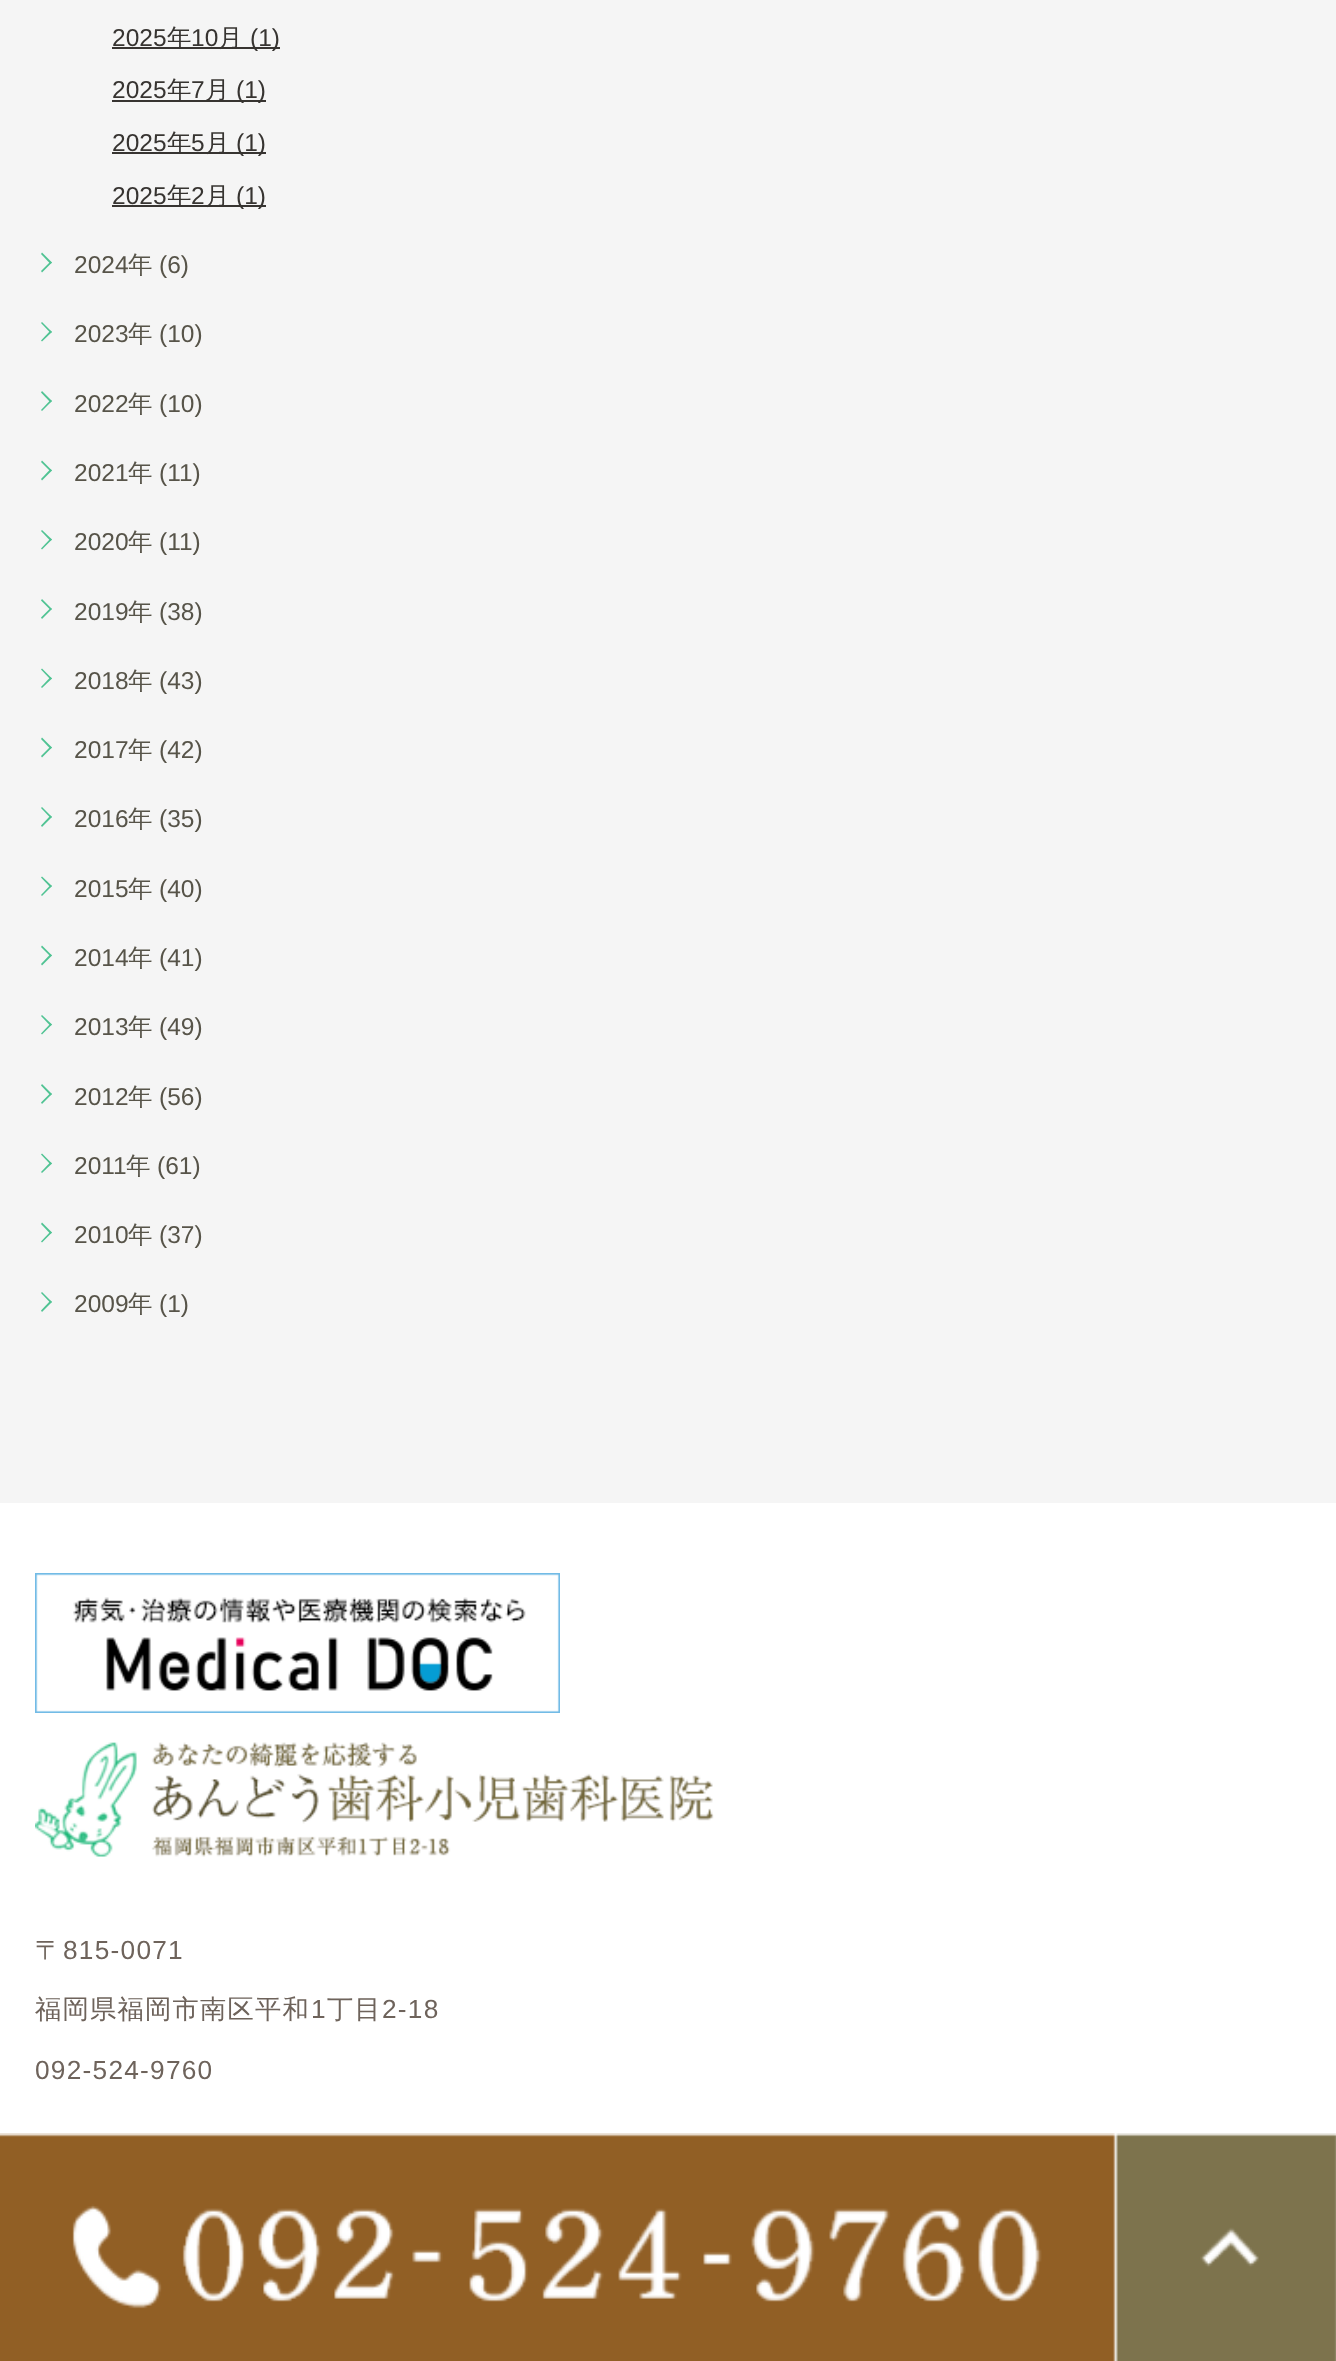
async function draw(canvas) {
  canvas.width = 1336
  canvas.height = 2361
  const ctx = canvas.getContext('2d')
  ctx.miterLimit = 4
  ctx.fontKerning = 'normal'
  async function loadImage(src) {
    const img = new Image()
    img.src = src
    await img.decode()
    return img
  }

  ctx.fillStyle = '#f5f5f5'
  ctx.fillRect(0, 0, 1336, 2361)
  ctx.font = '24.5px Liberation Sans'
  ctx.fillStyle = '#373431'
  ctx.fillText('2025', 112, 46)
  ctx.fillRect(112, 47, 168, 2)
  ctx.font = '500 24.5px WenQuanYi Zen Hei'
  ctx.fillText('年', 167, 46)
  ctx.font = '24.5px Liberation Sans'
  ctx.fillText('10', 191, 46)
  ctx.font = '500 24.5px WenQuanYi Zen Hei'
  ctx.fillText('月', 218, 46)
  ctx.font = '24.5px Liberation Sans'
  ctx.fillText('(1)', 250, 46)
  ctx.fillText('2025', 112, 98)
  ctx.fillRect(112, 100, 154, 2)
  ctx.font = '500 24.5px WenQuanYi Zen Hei'
  ctx.fillText('年', 167, 98)
  ctx.font = '24.5px Liberation Sans'
  ctx.fillText('7', 191, 98)
  ctx.font = '500 24.5px WenQuanYi Zen Hei'
  ctx.fillText('月', 205, 98)
  ctx.font = '24.5px Liberation Sans'
  ctx.fillText('(1)', 236, 98)
  ctx.fillText('2025', 112, 151)
  ctx.fillRect(112, 152, 154, 2)
  ctx.font = '500 24.5px WenQuanYi Zen Hei'
  ctx.fillText('年', 167, 151)
  ctx.font = '24.5px Liberation Sans'
  ctx.fillText('5', 191, 151)
  ctx.font = '500 24.5px WenQuanYi Zen Hei'
  ctx.fillText('月', 205, 151)
  ctx.font = '24.5px Liberation Sans'
  ctx.fillText('(1)', 236, 151)
  ctx.fillText('2025', 112, 204)
  ctx.fillRect(112, 205, 154, 2)
  ctx.font = '500 24.5px WenQuanYi Zen Hei'
  ctx.fillText('年', 167, 204)
  ctx.font = '24.5px Liberation Sans'
  ctx.fillText('2', 191, 204)
  ctx.font = '500 24.5px WenQuanYi Zen Hei'
  ctx.fillText('月', 205, 204)
  ctx.font = '24.5px Liberation Sans'
  ctx.fillText('(1)', 236, 204)
  ctx.fillStyle = '#50c393'
  ctx.beginPath()
  ctx.moveTo(41, 254)
  ctx.lineTo(42, 252.5)
  ctx.lineTo(52, 262.5)
  ctx.lineTo(50.5, 264)
  ctx.closePath()
  ctx.fill()
  ctx.beginPath()
  ctx.moveTo(41, 271)
  ctx.lineTo(50.5, 261.5)
  ctx.lineTo(52, 262.5)
  ctx.lineTo(42, 272.5)
  ctx.closePath()
  ctx.fill()
  ctx.fillStyle = '#575449'
  ctx.fillText('2024', 74, 273)
  ctx.font = '500 24.5px WenQuanYi Zen Hei'
  ctx.fillText('年', 128, 273)
  ctx.font = '24.5px Liberation Sans'
  ctx.fillText('(6)', 159, 273)
  ctx.fillStyle = '#50c393'
  ctx.beginPath()
  ctx.moveTo(41, 323)
  ctx.lineTo(42, 322)
  ctx.lineTo(52, 332)
  ctx.lineTo(50.5, 333)
  ctx.closePath()
  ctx.fill()
  ctx.beginPath()
  ctx.moveTo(41, 340.5)
  ctx.lineTo(50.5, 330.5)
  ctx.lineTo(52, 332)
  ctx.lineTo(42, 341.5)
  ctx.closePath()
  ctx.fill()
  ctx.fillStyle = '#575449'
  ctx.fillText('2023', 74, 342)
  ctx.font = '500 24.5px WenQuanYi Zen Hei'
  ctx.fillText('年', 128, 342)
  ctx.font = '24.5px Liberation Sans'
  ctx.fillText('(10)', 159, 342)
  ctx.fillStyle = '#50c393'
  ctx.beginPath()
  ctx.moveTo(41, 392.5)
  ctx.lineTo(42, 391)
  ctx.lineTo(52, 401)
  ctx.lineTo(50.5, 402.5)
  ctx.closePath()
  ctx.fill()
  ctx.beginPath()
  ctx.moveTo(41, 410)
  ctx.lineTo(50.5, 400)
  ctx.lineTo(52, 401)
  ctx.lineTo(42, 411)
  ctx.closePath()
  ctx.fill()
  ctx.fillStyle = '#575449'
  ctx.fillText('2022', 74, 412)
  ctx.font = '500 24.5px WenQuanYi Zen Hei'
  ctx.fillText('年', 128, 412)
  ctx.font = '24.5px Liberation Sans'
  ctx.fillText('(10)', 159, 412)
  ctx.fillStyle = '#50c393'
  ctx.beginPath()
  ctx.moveTo(41, 462)
  ctx.lineTo(42, 460.5)
  ctx.lineTo(52, 470.5)
  ctx.lineTo(50.5, 471.5)
  ctx.closePath()
  ctx.fill()
  ctx.beginPath()
  ctx.moveTo(41, 479)
  ctx.lineTo(50.5, 469)
  ctx.lineTo(52, 470.5)
  ctx.lineTo(42, 480.5)
  ctx.closePath()
  ctx.fill()
  ctx.fillStyle = '#575449'
  ctx.fillText('2021', 74, 481)
  ctx.font = '500 24.5px WenQuanYi Zen Hei'
  ctx.fillText('年', 128, 481)
  ctx.font = '24.5px Liberation Sans'
  ctx.fillText('(11)', 159, 481)
  ctx.fillStyle = '#50c393'
  ctx.beginPath()
  ctx.moveTo(41, 531)
  ctx.lineTo(42, 530)
  ctx.lineTo(52, 539.5)
  ctx.lineTo(50.5, 541)
  ctx.closePath()
  ctx.fill()
  ctx.beginPath()
  ctx.moveTo(41, 548.5)
  ctx.lineTo(50.5, 538.5)
  ctx.lineTo(52, 539.5)
  ctx.lineTo(42, 549.5)
  ctx.closePath()
  ctx.fill()
  ctx.fillStyle = '#575449'
  ctx.fillText('2020', 74, 550)
  ctx.font = '500 24.5px WenQuanYi Zen Hei'
  ctx.fillText('年', 128, 550)
  ctx.font = '24.5px Liberation Sans'
  ctx.fillText('(11)', 159, 550)
  ctx.fillStyle = '#50c393'
  ctx.beginPath()
  ctx.moveTo(41, 600.5)
  ctx.lineTo(42, 599)
  ctx.lineTo(52, 609)
  ctx.lineTo(50.5, 610)
  ctx.closePath()
  ctx.fill()
  ctx.beginPath()
  ctx.moveTo(41, 617.5)
  ctx.lineTo(50.5, 608)
  ctx.lineTo(52, 609)
  ctx.lineTo(42, 619)
  ctx.closePath()
  ctx.fill()
  ctx.fillStyle = '#575449'
  ctx.fillText('2019', 74, 620)
  ctx.font = '500 24.5px WenQuanYi Zen Hei'
  ctx.fillText('年', 128, 620)
  ctx.font = '24.5px Liberation Sans'
  ctx.fillText('(38)', 159, 620)
  ctx.fillStyle = '#50c393'
  ctx.beginPath()
  ctx.moveTo(41, 669.5)
  ctx.lineTo(42, 668.5)
  ctx.lineTo(52, 678.5)
  ctx.lineTo(50.5, 679.5)
  ctx.closePath()
  ctx.fill()
  ctx.beginPath()
  ctx.moveTo(41, 687)
  ctx.lineTo(50.5, 677)
  ctx.lineTo(52, 678.5)
  ctx.lineTo(42, 688)
  ctx.closePath()
  ctx.fill()
  ctx.fillStyle = '#575449'
  ctx.fillText('2018', 74, 689)
  ctx.font = '500 24.5px WenQuanYi Zen Hei'
  ctx.fillText('年', 128, 689)
  ctx.font = '24.5px Liberation Sans'
  ctx.fillText('(43)', 159, 689)
  ctx.fillStyle = '#50c393'
  ctx.beginPath()
  ctx.moveTo(41, 739)
  ctx.lineTo(42, 737.5)
  ctx.lineTo(52, 747.5)
  ctx.lineTo(50.5, 749)
  ctx.closePath()
  ctx.fill()
  ctx.beginPath()
  ctx.moveTo(41, 756)
  ctx.lineTo(50.5, 746.5)
  ctx.lineTo(52, 747.5)
  ctx.lineTo(42, 757.5)
  ctx.closePath()
  ctx.fill()
  ctx.fillStyle = '#575449'
  ctx.fillText('2017', 74, 758)
  ctx.font = '500 24.5px WenQuanYi Zen Hei'
  ctx.fillText('年', 128, 758)
  ctx.font = '24.5px Liberation Sans'
  ctx.fillText('(42)', 159, 758)
  ctx.fillStyle = '#50c393'
  ctx.beginPath()
  ctx.moveTo(41, 808)
  ctx.lineTo(42, 807)
  ctx.lineTo(52, 817)
  ctx.lineTo(50.5, 818)
  ctx.closePath()
  ctx.fill()
  ctx.beginPath()
  ctx.moveTo(41, 825.5)
  ctx.lineTo(50.5, 815.5)
  ctx.lineTo(52, 817)
  ctx.lineTo(42, 827)
  ctx.closePath()
  ctx.fill()
  ctx.fillStyle = '#575449'
  ctx.fillText('2016', 74, 827)
  ctx.font = '500 24.5px WenQuanYi Zen Hei'
  ctx.fillText('年', 128, 827)
  ctx.font = '24.5px Liberation Sans'
  ctx.fillText('(35)', 159, 827)
  ctx.fillStyle = '#50c393'
  ctx.beginPath()
  ctx.moveTo(41, 877.5)
  ctx.lineTo(42, 876.5)
  ctx.lineTo(52, 886)
  ctx.lineTo(50.5, 887.5)
  ctx.closePath()
  ctx.fill()
  ctx.beginPath()
  ctx.moveTo(41, 895)
  ctx.lineTo(50.5, 885)
  ctx.lineTo(52, 886)
  ctx.lineTo(42, 896)
  ctx.closePath()
  ctx.fill()
  ctx.fillStyle = '#575449'
  ctx.fillText('2015', 74, 897)
  ctx.font = '500 24.5px WenQuanYi Zen Hei'
  ctx.fillText('年', 128, 897)
  ctx.font = '24.5px Liberation Sans'
  ctx.fillText('(40)', 159, 897)
  ctx.fillStyle = '#50c393'
  ctx.beginPath()
  ctx.moveTo(41, 947)
  ctx.lineTo(42, 945.5)
  ctx.lineTo(52, 955.5)
  ctx.lineTo(50.5, 956.5)
  ctx.closePath()
  ctx.fill()
  ctx.beginPath()
  ctx.moveTo(41, 964)
  ctx.lineTo(50.5, 954)
  ctx.lineTo(52, 955.5)
  ctx.lineTo(42, 965.5)
  ctx.closePath()
  ctx.fill()
  ctx.fillStyle = '#575449'
  ctx.fillText('2014', 74, 966)
  ctx.font = '500 24.5px WenQuanYi Zen Hei'
  ctx.fillText('年', 128, 966)
  ctx.font = '24.5px Liberation Sans'
  ctx.fillText('(41)', 159, 966)
  ctx.fillStyle = '#50c393'
  ctx.beginPath()
  ctx.moveTo(41, 1016)
  ctx.lineTo(42, 1015)
  ctx.lineTo(52, 1024.5)
  ctx.lineTo(50.5, 1026)
  ctx.closePath()
  ctx.fill()
  ctx.beginPath()
  ctx.moveTo(41, 1033.5)
  ctx.lineTo(50.5, 1023.5)
  ctx.lineTo(52, 1024.5)
  ctx.lineTo(42, 1034.5)
  ctx.closePath()
  ctx.fill()
  ctx.fillStyle = '#575449'
  ctx.fillText('2013', 74, 1035)
  ctx.font = '500 24.5px WenQuanYi Zen Hei'
  ctx.fillText('年', 128, 1035)
  ctx.font = '24.5px Liberation Sans'
  ctx.fillText('(49)', 159, 1035)
  ctx.fillStyle = '#50c393'
  ctx.beginPath()
  ctx.moveTo(41, 1085.5)
  ctx.lineTo(42, 1084)
  ctx.lineTo(52, 1094)
  ctx.lineTo(50.5, 1095.5)
  ctx.closePath()
  ctx.fill()
  ctx.beginPath()
  ctx.moveTo(41, 1102.5)
  ctx.lineTo(50.5, 1093)
  ctx.lineTo(52, 1094)
  ctx.lineTo(42, 1104)
  ctx.closePath()
  ctx.fill()
  ctx.fillStyle = '#575449'
  ctx.fillText('2012', 74, 1105)
  ctx.font = '500 24.5px WenQuanYi Zen Hei'
  ctx.fillText('年', 128, 1105)
  ctx.font = '24.5px Liberation Sans'
  ctx.fillText('(56)', 159, 1105)
  ctx.fillStyle = '#50c393'
  ctx.beginPath()
  ctx.moveTo(41, 1154.5)
  ctx.lineTo(42, 1153.5)
  ctx.lineTo(52, 1163.5)
  ctx.lineTo(50.5, 1164.5)
  ctx.closePath()
  ctx.fill()
  ctx.beginPath()
  ctx.moveTo(41, 1172)
  ctx.lineTo(50.5, 1162)
  ctx.lineTo(52, 1163.5)
  ctx.lineTo(42, 1173)
  ctx.closePath()
  ctx.fill()
  ctx.fillStyle = '#575449'
  ctx.fillText('2011', 74, 1174)
  ctx.font = '500 24.5px WenQuanYi Zen Hei'
  ctx.fillText('年', 126, 1174)
  ctx.font = '24.5px Liberation Sans'
  ctx.fillText('(61)', 157, 1174)
  ctx.fillStyle = '#50c393'
  ctx.beginPath()
  ctx.moveTo(41, 1224)
  ctx.lineTo(42, 1222.5)
  ctx.lineTo(52, 1232.5)
  ctx.lineTo(50.5, 1234)
  ctx.closePath()
  ctx.fill()
  ctx.beginPath()
  ctx.moveTo(41, 1241.5)
  ctx.lineTo(50.5, 1231.5)
  ctx.lineTo(52, 1232.5)
  ctx.lineTo(42, 1242.5)
  ctx.closePath()
  ctx.fill()
  ctx.fillStyle = '#575449'
  ctx.fillText('2010', 74, 1243)
  ctx.font = '500 24.5px WenQuanYi Zen Hei'
  ctx.fillText('年', 128, 1243)
  ctx.font = '24.5px Liberation Sans'
  ctx.fillText('(37)', 159, 1243)
  ctx.fillStyle = '#50c393'
  ctx.beginPath()
  ctx.moveTo(41, 1293)
  ctx.lineTo(42, 1292)
  ctx.lineTo(52, 1302)
  ctx.lineTo(50.5, 1303)
  ctx.closePath()
  ctx.fill()
  ctx.beginPath()
  ctx.moveTo(41, 1310.5)
  ctx.lineTo(50.5, 1300.5)
  ctx.lineTo(52, 1302)
  ctx.lineTo(42, 1312)
  ctx.closePath()
  ctx.fill()
  ctx.fillStyle = '#575449'
  ctx.fillText('2009', 74, 1312)
  ctx.font = '500 24.5px WenQuanYi Zen Hei'
  ctx.fillText('年', 128, 1312)
  ctx.font = '24.5px Liberation Sans'
  ctx.fillText('(1)', 159, 1312)
  ctx.fillStyle = '#fff'
  ctx.fillRect(0, 1503, 1336, 858)
  ctx.drawImage(await loadImage('image0.png'), 35, 1573, 525, 140)
  ctx.drawImage(await loadImage('image1.png'), 35, 1742, 679, 115)
  ctx.letterSpacing = '1.25px'
  ctx.font = '500 26.25px WenQuanYi Zen Hei'
  ctx.fillStyle = '#6e635b'
  ctx.fillText('〒', 35, 1959)
  ctx.font = '26.25px Liberation Sans'
  ctx.fillText('815-0071', 63, 1959)
  ctx.font = '500 26.25px WenQuanYi Zen Hei'
  ctx.fillText('福岡県福岡市南区平和', 35, 2018)
  ctx.font = '26.25px Liberation Sans'
  ctx.fillText('1', 311, 2018)
  ctx.font = '500 26.25px WenQuanYi Zen Hei'
  ctx.fillText('丁目', 327, 2018)
  ctx.font = '26.25px Liberation Sans'
  ctx.fillText('2-18', 382, 2018)
  ctx.fillText('092-524-9760', 35, 2079)
  ctx.drawImage(await loadImage('image2.png'), 0, 2133, 1115, 228)
  ctx.drawImage(await loadImage('image3.png'), 1115, 2133, 221, 228)
}

draw(document.querySelector('canvas'))
